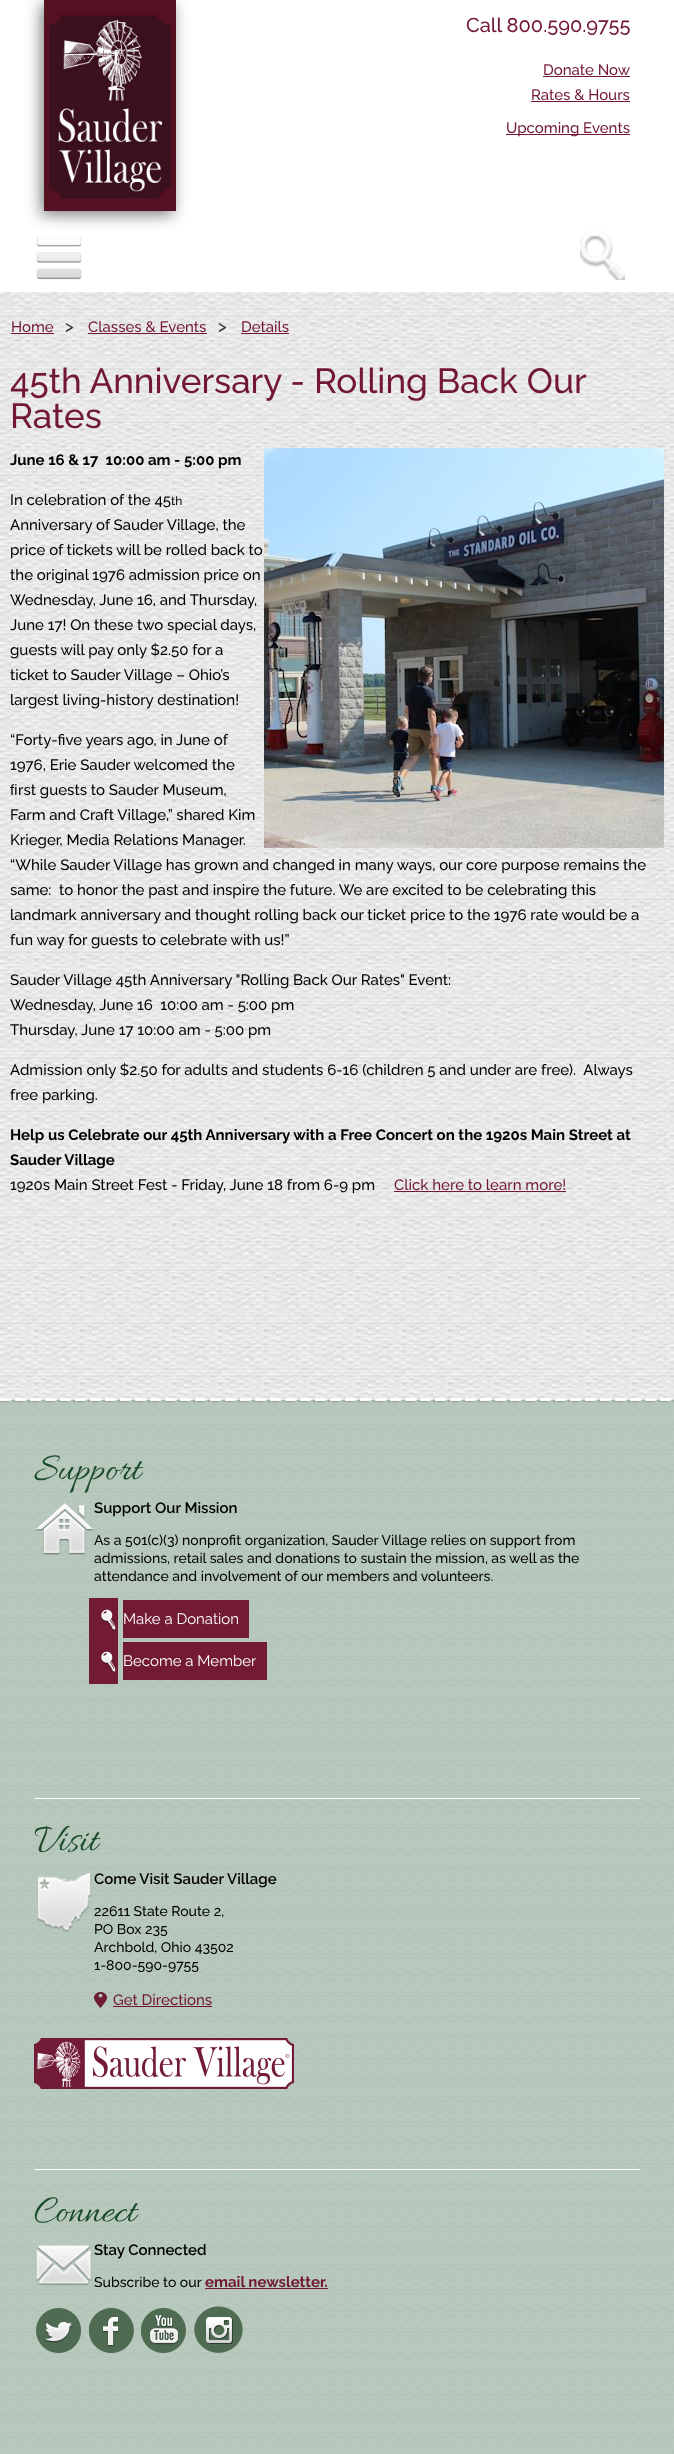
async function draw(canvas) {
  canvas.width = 674
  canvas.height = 2454
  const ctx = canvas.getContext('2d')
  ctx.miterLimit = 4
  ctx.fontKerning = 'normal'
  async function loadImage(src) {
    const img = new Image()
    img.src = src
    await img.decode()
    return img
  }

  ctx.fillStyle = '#fff'
  ctx.fillRect(0, 0, 674, 2454)
  ctx.drawImage(await loadImage('image0.png'), 0, 292, 674, 1106)
  ctx.drawImage(await loadImage('image3.png'), 36, 236, 46, 44)
  ctx.fillStyle = '#00000080'
  ctx.filter = 'blur(7.5px)'
  ctx.beginPath()
  ctx.rect(41, 4, 132, 211)
  ctx.fill()
  ctx.filter = 'none'
  ctx.drawImage(await loadImage('image1.png'), 44, 0, 132, 211)
  ctx.font = '500 20px Raleway'
  ctx.fillStyle = '#721835'
  ctx.fillText('Call 800.590.9755', 466, 32)
  ctx.font = '500 15px Raleway'
  ctx.fillText('Donate Now', 543, 75)
  ctx.fillRect(543, 76, 87, 1)
  ctx.fillText('Rates & Hours', 531, 100)
  ctx.fillRect(531, 101, 99, 1)
  ctx.fillRect(506, 134, 124, 1)
  ctx.fillText('Upcoming Events', 506, 133)
  ctx.drawImage(await loadImage('image2.png'), 580, 231, 45, 49)
  ctx.fillText('Home', 11, 332)
  ctx.fillRect(11, 333, 43, 1)
  ctx.font = '500 17px Raleway'
  ctx.fillStyle = '#333'
  ctx.fillText('>', 65, 332)
  ctx.font = '500 15px Raleway'
  ctx.fillStyle = '#721835'
  ctx.fillText('Classes & Events', 88, 332)
  ctx.fillRect(88, 333, 119, 1)
  ctx.font = '500 17px Raleway'
  ctx.fillStyle = '#333'
  ctx.fillText('>', 218, 332)
  ctx.font = '500 15px Raleway'
  ctx.fillStyle = '#721835'
  ctx.fillText('Details', 241, 332)
  ctx.fillRect(241, 333, 48, 1)
  ctx.font = '500 35px Raleway'
  ctx.fillText('45th Anniversary - Rolling Back Our', 10, 393)
  ctx.fillText('Rates', 10, 428)
  ctx.font = 'bold 15px Raleway'
  ctx.fillStyle = '#000'
  ctx.fillText('June 16 & 17  10:00 am - 5:00 pm', 10, 465)
  ctx.drawImage(await loadImage('image4.png'), 264, 448, 400, 400)
  ctx.font = '500 15px Raleway'
  ctx.fillText('In celebration of the 45', 10, 505)
  ctx.font = '500 12px Raleway'
  ctx.fillText('th', 171, 505)
  ctx.font = '500 15px Raleway'
  ctx.fillText('Anniversary of Sauder Village, the', 10, 530)
  ctx.fillText('price of tickets will be rolled back to', 10, 555)
  ctx.fillText('the original 1976 admission price on', 10, 580)
  ctx.fillText('Wednesday, June 16, and Thursday,', 10, 605)
  ctx.fillText('June 17! On these two special days,', 10, 630)
  ctx.fillText('guests will pay only $2.50 for a', 10, 655)
  ctx.fillText('ticket to Sauder Village – Ohio’s', 10, 680)
  ctx.fillText('largest living-history destination!', 10, 705)
  ctx.fillText('“Forty-five years ago, in June of', 10, 745)
  ctx.fillText('1976, Erie Sauder welcomed the', 10, 770)
  ctx.font = '15px Liberation Sans'
  ctx.fillText('ﬁ', 10, 795)
  ctx.font = '500 15px Raleway'
  ctx.fillText('rst guests to Sauder Museum,', 18, 795)
  ctx.fillText('Farm and Craft Village,” shared Kim', 10, 820)
  ctx.fillText('Krieger, Media Relations Manager.', 10, 845)
  ctx.fillText('“While Sauder Village has grown and changed in many ways, our core purpose remains the', 10, 870)
  ctx.fillText('same:  to honor the past and inspire the future. We are excited to be celebrating this', 10, 895)
  ctx.fillText('landmark anniversary and thought rolling back our ticket price to the 1976 rate would be a', 10, 920)
  ctx.fillText('fun way for guests to celebrate with us!”', 10, 945)
  ctx.fillText('Sauder Village 45th Anniversary "Rolling Back Our Rates" Event:', 10, 985)
  ctx.fillText('Wednesday, June 16  10:00 am - 5:00 pm', 10, 1010)
  ctx.fillText('Thursday, June 17 10:00 am - 5:00 pm', 10, 1035)
  ctx.fillText('Admission only $2.50 for adults and students 6-16 (children 5 and under are free).  Always', 10, 1075)
  ctx.fillText('free parking.', 10, 1100)
  ctx.font = 'bold 15px Raleway'
  ctx.fillText('Help us Celebrate our 45th Anniversary with a Free Concert on the 1920s Main Street at', 10, 1140)
  ctx.fillText('Sauder Village', 10, 1165)
  ctx.font = '500 15px Raleway'
  ctx.fillText('1920s Main Street Fest - Friday, June 18 from 6-9 pm', 10, 1190)
  ctx.fillStyle = '#721835'
  ctx.fillText('Click here to learn more!', 394, 1190)
  ctx.fillRect(394, 1191, 172, 1)
  ctx.drawImage(await loadImage('image5.png'), 0, 1398, 674, 1056)
  ctx.fillStyle = '#fff'
  ctx.fillRect(34, 1798, 606, 1)
  ctx.font = '40px Allura'
  ctx.fillStyle = '#1b4a2b'
  ctx.fillText('Support', 34, 1479)
  ctx.drawImage(await loadImage('image6.png'), 35, 1503, 59, 52)
  ctx.font = '600 15px Raleway'
  ctx.fillStyle = '#000'
  ctx.fillText('Support Our Mission', 94, 1513)
  ctx.font = '500 14px Raleway'
  ctx.fillText('As a 501(c)(3) nonprofit organization, Sauder Village relies on support from', 94, 1545)
  ctx.fillText('admissions, retail sales and donations to sustain the mission, as well as the', 94, 1563)
  ctx.fillText('attendance and involvement of our members and volunteers.', 94, 1581)
  ctx.fillStyle = '#731b35'
  ctx.fillRect(89, 1598, 29, 86)
  ctx.drawImage(await loadImage('image7.png'), 100, 1609, 16, 23)
  ctx.fillRect(123, 1600, 126, 38)
  ctx.font = '15px Raleway'
  ctx.fillStyle = '#fff'
  ctx.fillText('Make a Donation', 123, 1624)
  ctx.drawImage(await loadImage('image7.png'), 100, 1651, 16, 23)
  ctx.fillStyle = '#731b35'
  ctx.fillRect(123, 1642, 144, 38)
  ctx.fillStyle = '#fff'
  ctx.fillText('Become a Member', 123, 1666)
  ctx.fillRect(34, 2169, 606, 1)
  ctx.font = '40px Allura'
  ctx.fillStyle = '#1b4a2b'
  ctx.fillText('Visit', 34, 1850)
  ctx.drawImage(await loadImage('image8.png'), 37, 1873, 55, 59)
  ctx.font = '600 15px Raleway'
  ctx.fillStyle = '#000'
  ctx.fillText('Come Visit Sauder Village', 94, 1884)
  ctx.font = '500 14px Raleway'
  ctx.fillText('22611 State Route 2,', 94, 1916)
  ctx.fillText('PO Box 235', 94, 1934)
  ctx.fillText('Archbold, Ohio 43502', 94, 1952)
  ctx.fillText('1-800-590-9755', 94, 1970)
  ctx.drawImage(await loadImage('image9.png'), 94, 1992, 13, 16)
  ctx.font = '500 15px Raleway'
  ctx.fillStyle = '#721835'
  ctx.fillText('Get Directions', 113, 2005)
  ctx.fillRect(113, 2006, 99, 1)
  ctx.drawImage(await loadImage('image10.png'), 34, 2038, 260, 51)
  ctx.font = '40px Allura'
  ctx.fillStyle = '#1b4a2b'
  ctx.fillText('Connect', 34, 2221)
  ctx.drawImage(await loadImage('image11.png'), 35, 2245, 57, 41)
  ctx.font = '600 15px Raleway'
  ctx.fillStyle = '#000'
  ctx.fillText('Stay Connected', 94, 2255)
  ctx.font = '500 14px Raleway'
  ctx.fillText('Subscribe to our', 94, 2287)
  ctx.font = 'bold 15px Raleway'
  ctx.fillStyle = '#721835'
  ctx.fillText('email newsletter.', 205, 2287)
  ctx.fillRect(205, 2288, 123, 1)
  ctx.drawImage(await loadImage('image12.png'), 36, 2308, 45, 45)
  ctx.drawImage(await loadImage('image13.png'), 89, 2308, 45, 45)
  ctx.drawImage(await loadImage('image14.png'), 141, 2308, 45, 45)
  ctx.drawImage(await loadImage('image15.png'), 194, 2306, 49, 47)
}

draw(document.querySelector('canvas'))
